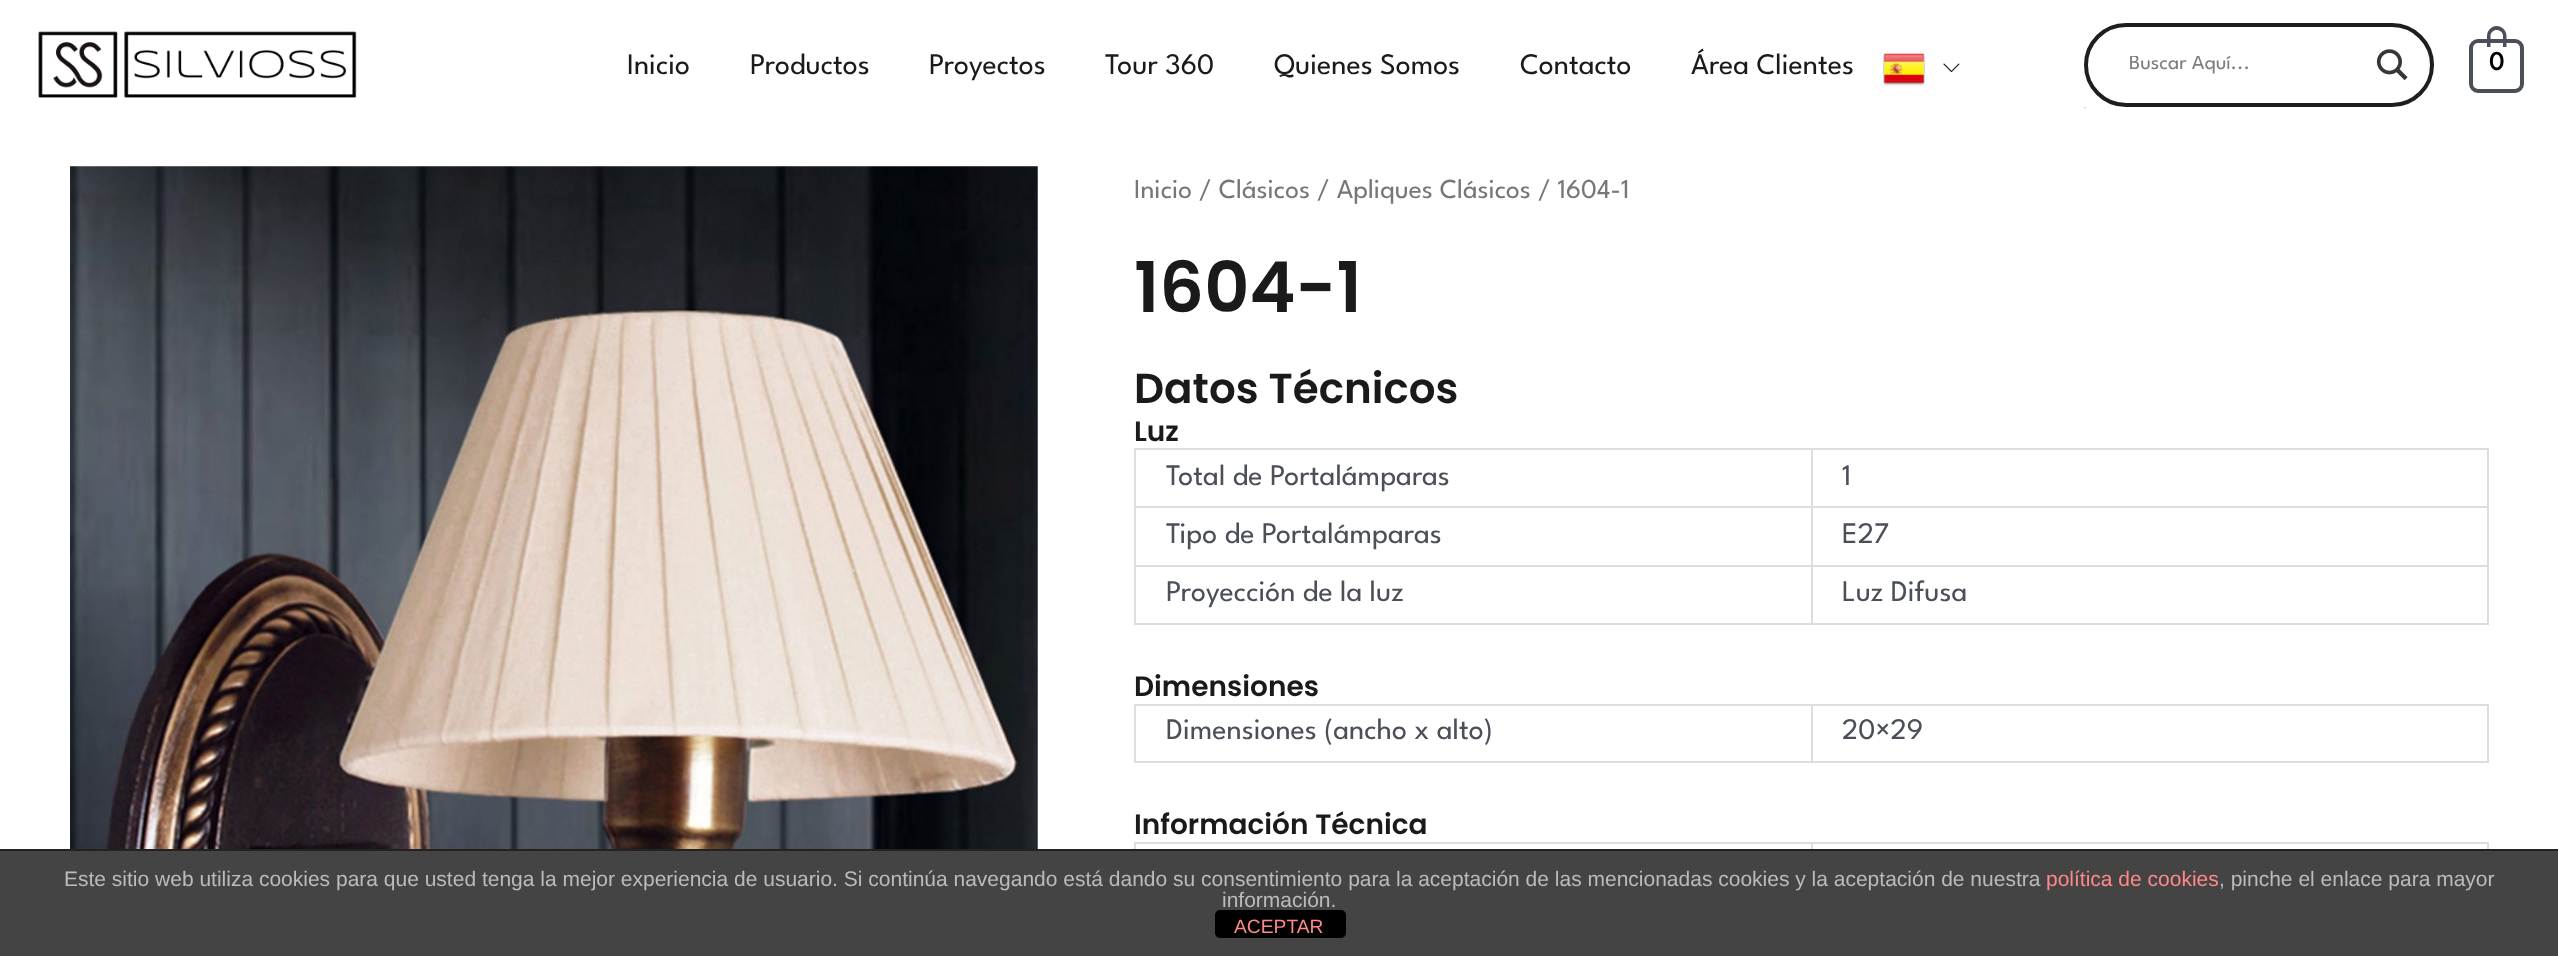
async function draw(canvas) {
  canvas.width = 2558
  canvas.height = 956
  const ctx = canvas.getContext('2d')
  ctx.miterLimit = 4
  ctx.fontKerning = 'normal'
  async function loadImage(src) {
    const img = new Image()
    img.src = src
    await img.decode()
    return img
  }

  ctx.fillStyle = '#fff'
  ctx.fillRect(0, 0, 2558, 956)
  ctx.drawImage(await loadImage('image0.png'), 38, 31, 319, 67)
  ctx.font = '100 29.75px League Spartan'
  ctx.fillStyle = '#1a1a1a'
  ctx.fillText('Inicio', 627, 74)
  ctx.fillText('Productos', 750, 74)
  ctx.fillText('Proyectos', 929, 74)
  ctx.fillText('Tour 360', 1105, 74)
  ctx.fillText('Quienes Somos', 1274, 74)
  ctx.fillText('Contacto', 1520, 74)
  ctx.fillText('Área Clientes', 1691, 74)
  ctx.drawImage(await loadImage('image1.png'), 1883, 52, 42, 34)
  ctx.drawImage(await loadImage('image2.png'), 1943, 63, 17, 10)
  ctx.beginPath()
  ctx.roundRect(2086, 25, 346, 80, 40)
  ctx.strokeStyle = '#1e1e1e'
  ctx.lineWidth = 4
  ctx.stroke()
  ctx.save()
  ctx.beginPath()
  ctx.rect(2128, 56, 231, 19)
  ctx.clip()
  ctx.font = '100 21px League Spartan'
  ctx.fillStyle = '#7d7d7d'
  ctx.fillText('Buscar Aquí...', 2129, 69)
  ctx.restore()
  ctx.drawImage(await loadImage('image3.png'), 2376, 49, 32, 32)
  ctx.drawImage(await loadImage('image4.png'), 2084, 107, 2, 2)
  ctx.beginPath()
  ctx.roundRect(2471, 41, 51, 50, 7)
  ctx.strokeStyle = '#4b4f58'
  ctx.stroke()
  ctx.fillStyle = '#4b4f58'
  ctx.beginPath()
  ctx.moveTo(2496.5, 26)
  ctx.bezierCurveTo(2502, 26, 2506.5, 30.5, 2506.5, 36)
  ctx.lineTo(2506.5, 47)
  ctx.lineTo(2487, 47)
  ctx.lineTo(2487, 36)
  ctx.bezierCurveTo(2487, 30.5, 2491.5, 26, 2496.5, 26)
  ctx.closePath()
  ctx.moveTo(2496.5, 30)
  ctx.bezierCurveTo(2500, 30, 2503, 32.5, 2503, 36)
  ctx.lineTo(2503, 47)
  ctx.lineTo(2490.5, 47)
  ctx.lineTo(2490.5, 36)
  ctx.bezierCurveTo(2490.5, 32.5, 2493.5, 30, 2496.5, 30)
  ctx.closePath()
  ctx.fill('evenodd')
  ctx.font = 'bold 26px League Spartan'
  ctx.fillStyle = '#000'
  ctx.fillText('0', 2489, 70)
  ctx.drawImage(await loadImage('image5.png'), 70, 166, 968, 683)
  ctx.font = '100 27.4px League Spartan'
  ctx.fillStyle = '#777'
  ctx.fillText('Inicio / Clásicos / Apliques Clásicos / 1604-1', 1134, 198)
  ctx.font = '600 70px Poppins'
  ctx.fillStyle = '#1a1a1a'
  ctx.fillText('1604-1', 1134, 312)
  ctx.font = '600 42px Poppins'
  ctx.fillText('Datos Técnicos', 1134, 403)
  ctx.font = '600 28px Poppins'
  ctx.fillText('Luz', 1134, 441)
  ctx.fillStyle = '#ddd'
  ctx.fillRect(1134, 448, 1355, 2)
  ctx.fillRect(1134, 448, 2, 177)
  ctx.fillRect(1811, 450, 2, 175)
  ctx.fillRect(1136, 506, 677, 2)
  ctx.font = '100 29.75px League Spartan'
  ctx.fillStyle = '#4b4f58'
  ctx.fillText('Total de Portalámparas', 1166, 485)
  ctx.fillStyle = '#ddd'
  ctx.fillRect(2487, 450, 2, 175)
  ctx.fillRect(1813, 506, 676, 2)
  ctx.fillStyle = '#4b4f58'
  ctx.fillText('1', 1842, 485)
  ctx.fillStyle = '#ddd'
  ctx.fillRect(1136, 565, 1353, 2)
  ctx.fillStyle = '#4b4f58'
  ctx.fillText('Tipo de Portalámparas', 1166, 543)
  ctx.fillText('E27', 1842, 543)
  ctx.fillStyle = '#ddd'
  ctx.fillRect(1136, 623, 1353, 2)
  ctx.fillStyle = '#4b4f58'
  ctx.fillText('Proyección de la luz', 1166, 601)
  ctx.fillText('Luz Difusa', 1842, 601)
  ctx.font = '600 28px Poppins'
  ctx.fillStyle = '#1a1a1a'
  ctx.fillText('Dimensiones', 1134, 696)
  ctx.fillStyle = '#ddd'
  ctx.fillRect(1134, 704, 1355, 2)
  ctx.fillRect(1134, 704, 2, 59)
  ctx.fillRect(1811, 705, 2, 58)
  ctx.fillRect(1136, 761, 677, 2)
  ctx.font = '100 29.75px League Spartan'
  ctx.fillStyle = '#4b4f58'
  ctx.fillText('Dimensiones (ancho x alto)', 1166, 739)
  ctx.fillStyle = '#ddd'
  ctx.fillRect(2487, 705, 2, 58)
  ctx.fillRect(1813, 761, 676, 2)
  ctx.fillStyle = '#4b4f58'
  ctx.fillText('20×29', 1842, 739)
  ctx.font = '600 28px Poppins'
  ctx.fillStyle = '#1a1a1a'
  ctx.fillText('Información Técnica', 1134, 834)
  ctx.fillStyle = '#ddd'
  ctx.fillRect(1134, 842, 1355, 2)
  ctx.fillRect(1134, 842, 2, 7)
  ctx.fillRect(1811, 844, 2, 5)
  ctx.fillRect(2487, 844, 2, 5)
  ctx.fillStyle = '#444'
  ctx.fillRect(0, 851, 2558, 105)
  ctx.fillStyle = '#222'
  ctx.fillRect(0, 849, 2558, 2)
  ctx.font = '21px Liberation Sans'
  ctx.fillStyle = '#bbb'
  ctx.fillText('Este sitio web utiliza cookies para que usted tenga la mejor experiencia de usuario. Si continúa navegando está dando su consentimiento para la aceptación de las mencionadas cookies y la aceptación de nuestra', 64, 886)
  ctx.fillStyle = '#f88'
  ctx.fillText('política de cookies', 2046, 886)
  ctx.fillStyle = '#bbb'
  ctx.fillText(', pinche el enlace para mayor', 2219, 886)
  ctx.fillText('información.', 1222, 907)
  ctx.fillStyle = '#000'
  ctx.beginPath()
  ctx.roundRect(1215, 910, 131, 28, 5)
  ctx.fill()
  ctx.font = '19.25px Liberation Sans'
  ctx.fillStyle = '#f88'
  ctx.fillText('ACEPTAR', 1234, 933)
}

draw(document.querySelector('canvas'))
